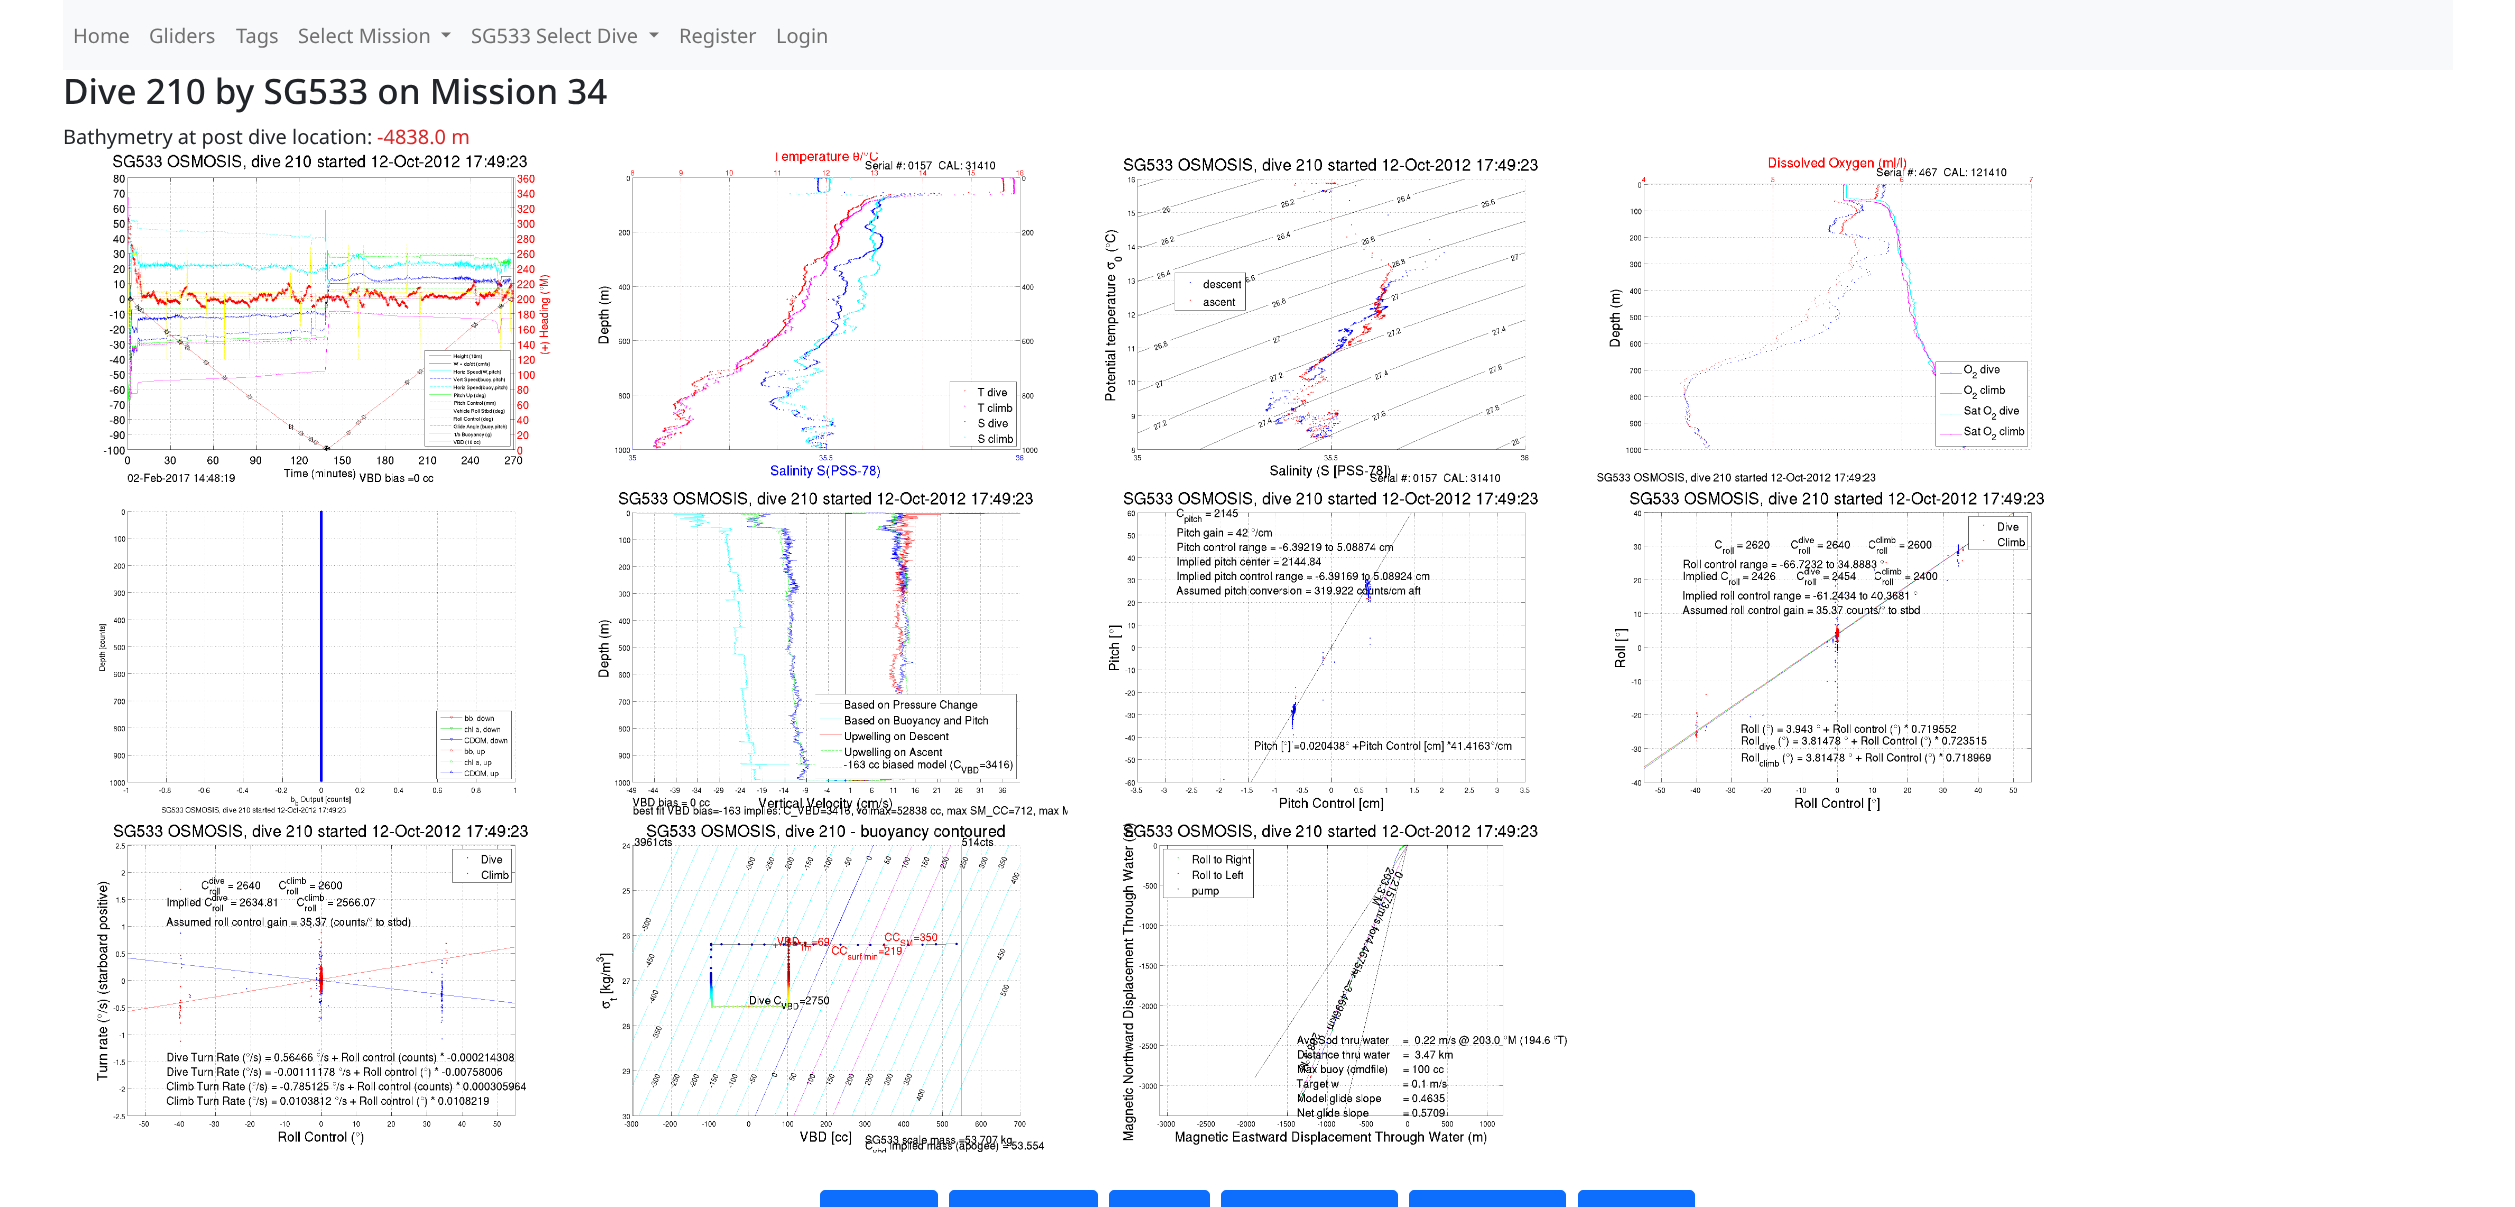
async function draw(canvas) {
  canvas.width = 2515
  canvas.height = 1207
  const ctx = canvas.getContext('2d')
  ctx.miterLimit = 4
  ctx.fontKerning = 'normal'
  async function loadImage(src) {
    const img = new Image()
    img.src = src
    await img.decode()
    return img
  }

  ctx.fillStyle = '#fff'
  ctx.fillRect(0, 0, 2515, 1207)
  ctx.fillStyle = '#f8f9fa'
  ctx.fillRect(63, 0, 2390, 70)
  ctx.font = '20px Noto Sans'
  ctx.fillStyle = '#707071'
  ctx.fillText('Home', 73, 43)
  ctx.fillText('Gliders', 149, 43)
  ctx.fillText('Tags', 236, 43)
  ctx.fillText('Select Mission', 298, 43)
  ctx.beginPath()
  ctx.moveTo(441, 32.5)
  ctx.lineTo(451, 32.5)
  ctx.lineTo(446, 37.5)
  ctx.closePath()
  ctx.fill()
  ctx.fillText('SG533 Select Dive', 471, 43)
  ctx.beginPath()
  ctx.moveTo(649, 32.5)
  ctx.lineTo(659, 32.5)
  ctx.lineTo(654, 37.5)
  ctx.closePath()
  ctx.fill()
  ctx.fillText('Register', 679, 43)
  ctx.fillText('Login', 776, 43)
  ctx.font = '500 35px Noto Sans'
  ctx.fillStyle = '#212529'
  ctx.fillText('Dive 210 by SG533 on Mission 34', 63, 104)
  ctx.font = '20px Noto Sans'
  ctx.fillText('Bathymetry at post dive location:', 63, 144)
  ctx.fillStyle = '#d92727'
  ctx.fillText('-4838.0 m', 377, 144)
  ctx.drawImage(await loadImage('image0.png'), 103, 154, 448, 328)
  ctx.drawImage(await loadImage('image1.png'), 598, 152, 440, 327)
  ctx.drawImage(await loadImage('image2.png'), 1105, 158, 433, 324)
  ctx.drawImage(await loadImage('image3.png'), 1597, 157, 436, 326)
  ctx.drawImage(await loadImage('image4.png'), 99, 509, 417, 305)
  ctx.drawImage(await loadImage('image5.png'), 598, 492, 470, 325)
  ctx.drawImage(await loadImage('image6.png'), 1109, 492, 429, 319)
  ctx.drawImage(await loadImage('image7.png'), 1615, 492, 429, 319)
  ctx.drawImage(await loadImage('image8.png'), 97, 824, 431, 321)
  ctx.drawImage(await loadImage('image9.png'), 596, 824, 449, 329)
  ctx.drawImage(await loadImage('image10.png'), 1122, 823, 445, 322)
  ctx.fillStyle = '#0d6efd'
  ctx.beginPath()
  ctx.roundRect(820.5, 1190.5, 117, 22, 4.5)
  ctx.fill()
  ctx.strokeStyle = '#0d6efd'
  ctx.stroke()
  ctx.beginPath()
  ctx.roundRect(949.5, 1190.5, 148, 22, 4.5)
  ctx.fill()
  ctx.stroke()
  ctx.beginPath()
  ctx.roundRect(1109.5, 1190.5, 100, 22, 4.5)
  ctx.fill()
  ctx.stroke()
  ctx.beginPath()
  ctx.roundRect(1221.5, 1190.5, 176, 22, 4.5)
  ctx.fill()
  ctx.stroke()
  ctx.beginPath()
  ctx.roundRect(1409.5, 1190.5, 156, 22, 4.5)
  ctx.fill()
  ctx.stroke()
  ctx.beginPath()
  ctx.roundRect(1578.5, 1190.5, 116, 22, 4.5)
  ctx.fill()
  ctx.stroke()
}

draw(document.querySelector('canvas'))
